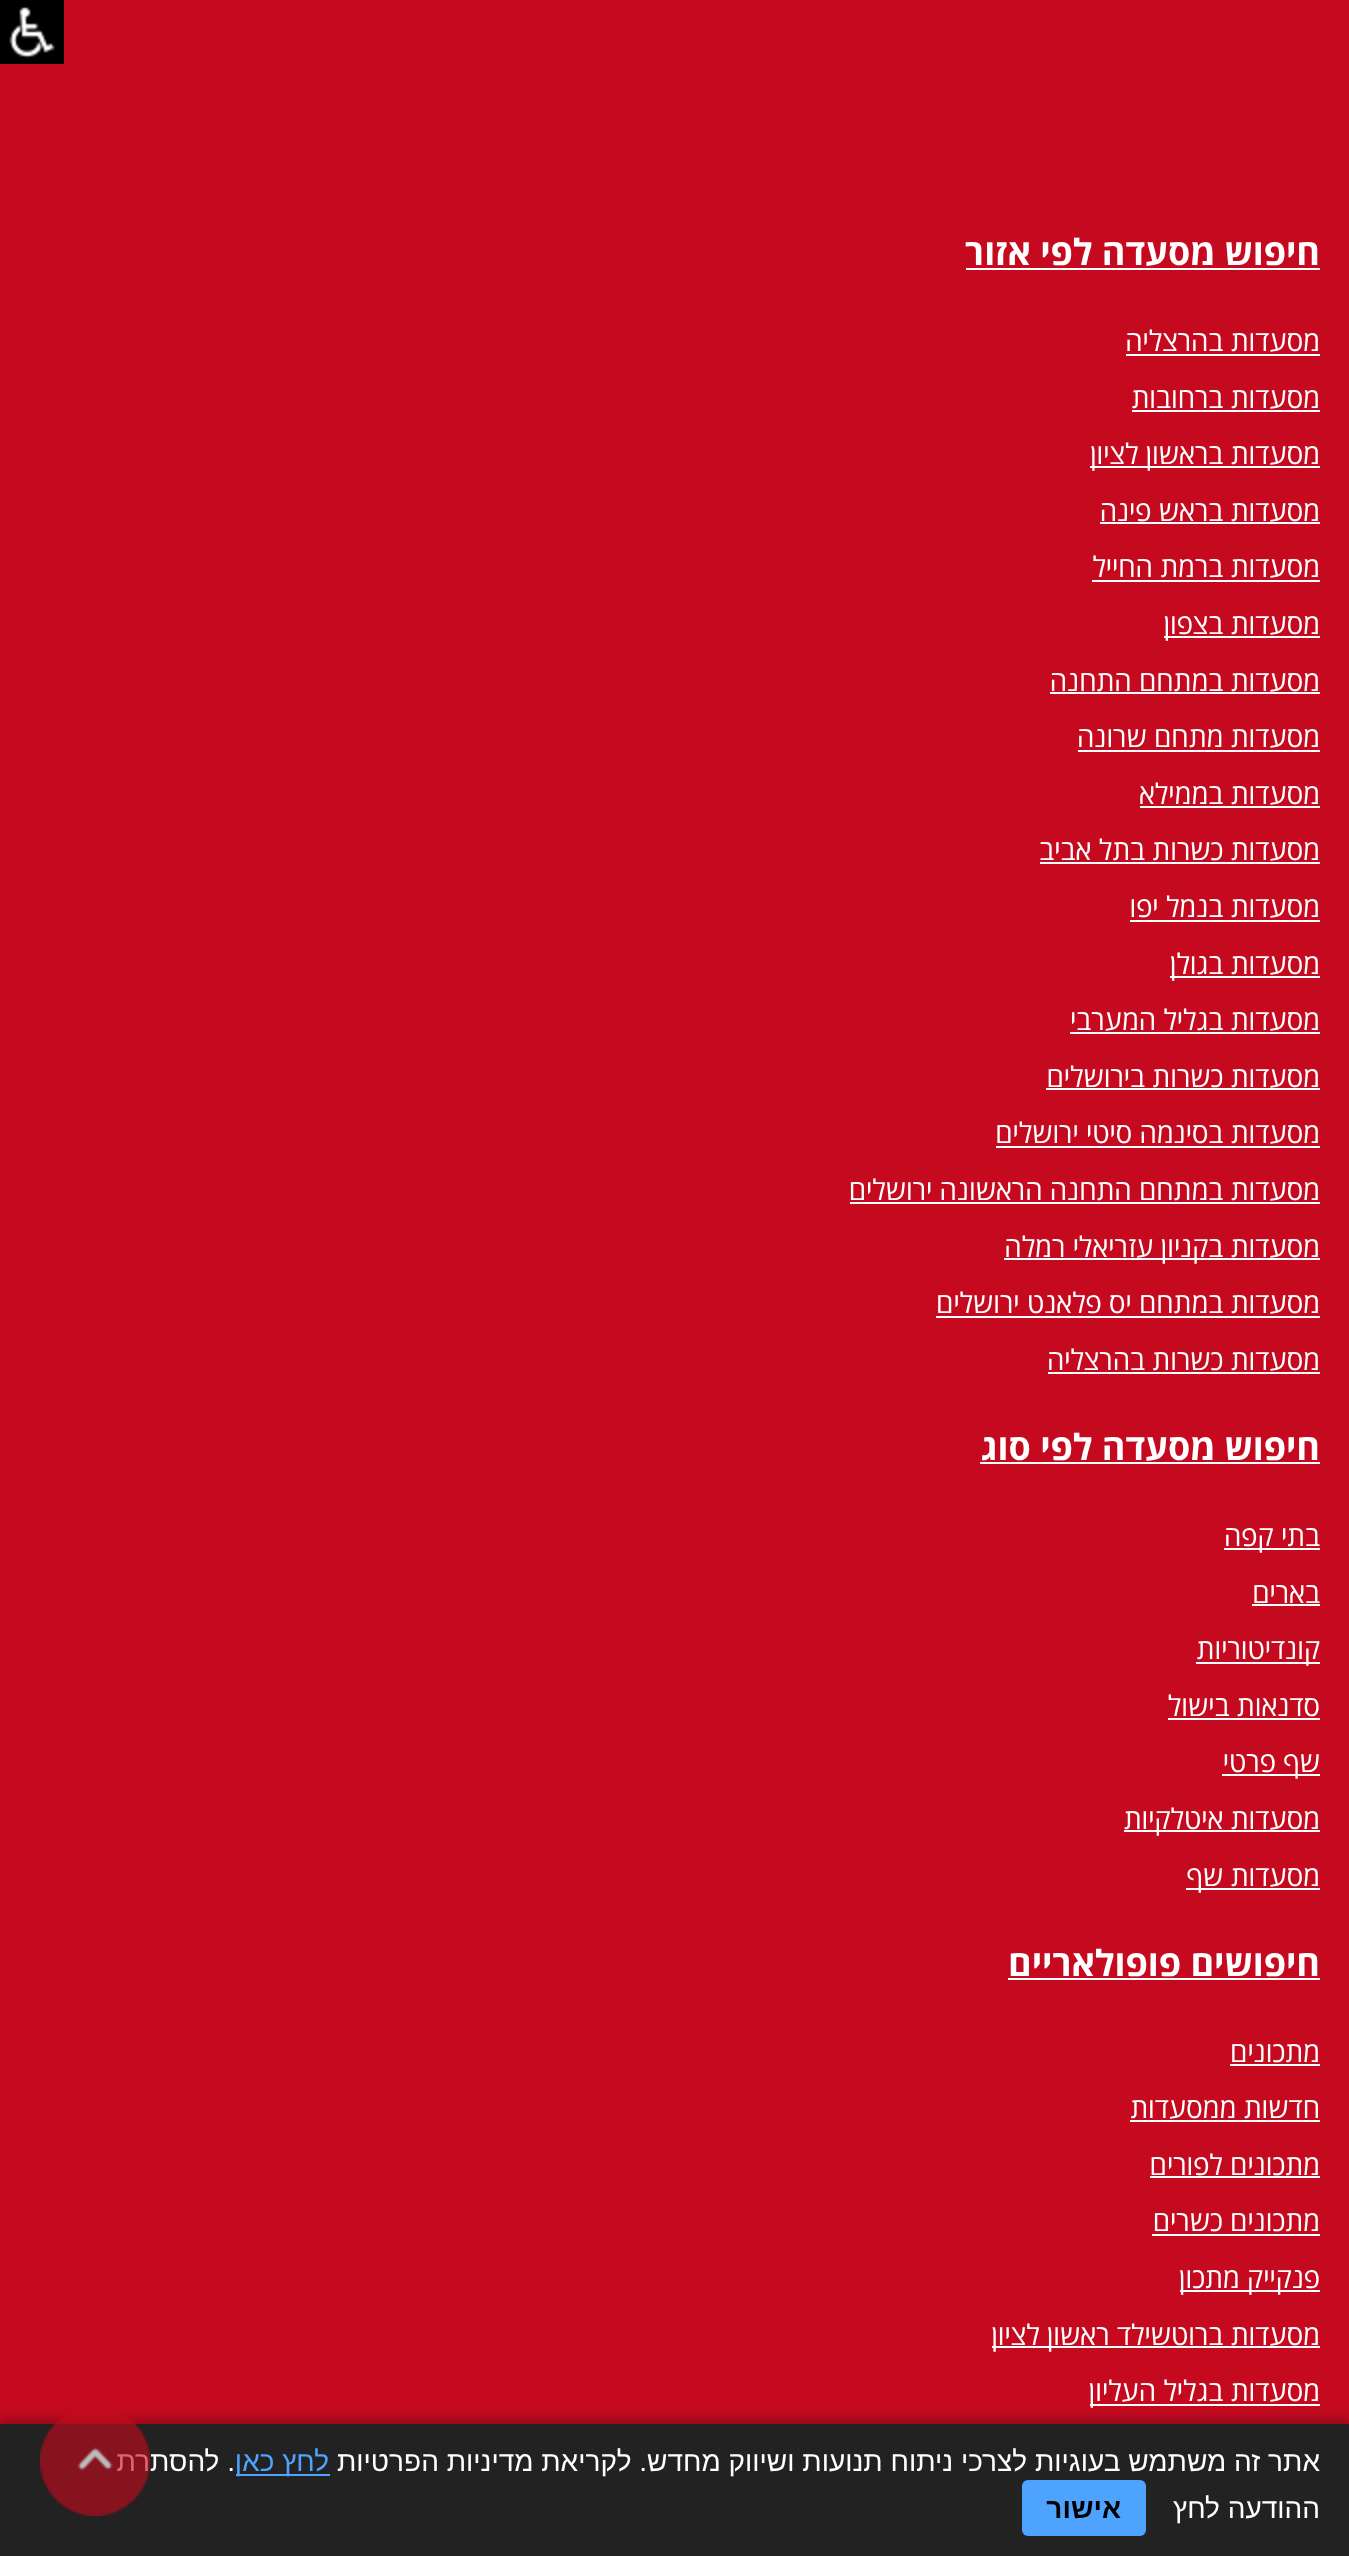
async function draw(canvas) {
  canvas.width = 1349
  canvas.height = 2556
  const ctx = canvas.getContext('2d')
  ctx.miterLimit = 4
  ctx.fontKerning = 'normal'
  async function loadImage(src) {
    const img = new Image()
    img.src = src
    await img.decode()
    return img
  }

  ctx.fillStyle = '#c50a20'
  ctx.fillRect(0, 0, 1349, 2556)
  ctx.fillStyle = '#000'
  ctx.fillRect(0, 0, 64, 64)
  ctx.drawImage(await loadImage('image0.png'), 9, 6, 46, 53)
  ctx.direction = 'rtl'
  ctx.font = 'bold 36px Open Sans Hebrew'
  ctx.fillStyle = '#fff'
  ctx.fillText('חיפוש מסעדה לפי אזור', 1320, 265)
  ctx.fillRect(966, 268, 354, 2)
  ctx.font = '28.2px Open Sans Hebrew'
  ctx.fillText('מסעדות בהרצליה', 1320, 351)
  ctx.fillRect(1126, 354, 194, 2)
  ctx.fillText('מסעדות ברחובות', 1320, 408)
  ctx.fillRect(1132, 410, 188, 2)
  ctx.fillRect(1090, 466, 230, 2)
  ctx.fillText('מסעדות בראשון לציון', 1320, 464)
  ctx.fillText('מסעדות בראש פינה', 1320, 521)
  ctx.fillRect(1100, 522, 220, 2)
  ctx.fillText('מסעדות ברמת החייל', 1320, 577)
  ctx.fillRect(1092, 580, 228, 2)
  ctx.fillRect(1164, 636, 156, 2)
  ctx.fillText('מסעדות בצפון', 1320, 634)
  ctx.fillText('מסעדות במתחם התחנה', 1320, 691)
  ctx.fillRect(1050, 692, 270, 2)
  ctx.fillText('מסעדות מתחם שרונה', 1320, 747)
  ctx.fillRect(1078, 750, 242, 2)
  ctx.fillText('מסעדות בממילא', 1320, 804)
  ctx.fillRect(1140, 806, 180, 2)
  ctx.fillText('מסעדות כשרות בתל אביב', 1320, 860)
  ctx.fillRect(1040, 862, 280, 2)
  ctx.fillText('מסעדות בנמל יפו', 1320, 917)
  ctx.fillRect(1130, 920, 190, 2)
  ctx.fillRect(1170, 976, 150, 2)
  ctx.fillText('מסעדות בגולן', 1320, 974)
  ctx.fillText('מסעדות בגליל המערבי', 1320, 1030)
  ctx.fillRect(1070, 1032, 250, 2)
  ctx.fillText('מסעדות כשרות בירושלים', 1320, 1087)
  ctx.fillRect(1046, 1088, 274, 2)
  ctx.fillText('מסעדות בסינמה סיטי ירושלים', 1320, 1143)
  ctx.fillRect(996, 1146, 324, 2)
  ctx.fillText('מסעדות במתחם התחנה הראשונה ירושלים', 1320, 1200)
  ctx.fillRect(850, 1202, 470, 2)
  ctx.fillRect(1004, 1258, 316, 2)
  ctx.fillText('מסעדות בקניון עזריאלי רמלה', 1320, 1257)
  ctx.fillText('מסעדות במתחם יס פלאנט ירושלים', 1320, 1313)
  ctx.fillRect(936, 1316, 384, 2)
  ctx.fillText('מסעדות כשרות בהרצליה', 1320, 1370)
  ctx.fillRect(1048, 1372, 272, 2)
  ctx.font = 'bold 36px Open Sans Hebrew'
  ctx.fillText('חיפוש מסעדה לפי סוג', 1320, 1460)
  ctx.fillRect(980, 1462, 340, 2)
  ctx.fillRect(1224, 1548, 96, 2)
  ctx.font = '28.2px Open Sans Hebrew'
  ctx.fillText('בתי קפה', 1320, 1546)
  ctx.fillText('בארים', 1320, 1603)
  ctx.fillRect(1252, 1604, 68, 2)
  ctx.fillRect(1196, 1662, 124, 2)
  ctx.fillText('קונדיטוריות', 1320, 1659)
  ctx.fillText('סדנאות בישול', 1320, 1716)
  ctx.fillRect(1168, 1718, 152, 2)
  ctx.fillRect(1222, 1774, 98, 2)
  ctx.fillText('שף פרטי', 1320, 1772)
  ctx.fillRect(1124, 1830, 196, 2)
  ctx.fillText('מסעדות איטלקיות', 1320, 1829)
  ctx.fillRect(1186, 1888, 134, 2)
  ctx.fillText('מסעדות שף', 1320, 1886)
  ctx.font = 'bold 36px Open Sans Hebrew'
  ctx.fillText('חיפושים פופולאריים', 1320, 1976)
  ctx.fillRect(1008, 1978, 312, 2)
  ctx.font = '28.2px Open Sans Hebrew'
  ctx.fillText('מתכונים', 1320, 2062)
  ctx.fillRect(1230, 2064, 90, 2)
  ctx.fillText('חדשות ממסעדות', 1320, 2118)
  ctx.fillRect(1130, 2120, 190, 2)
  ctx.fillText('מתכונים לפורים', 1320, 2175)
  ctx.fillRect(1150, 2176, 170, 2)
  ctx.fillText('מתכונים כשרים', 1320, 2231)
  ctx.fillRect(1152, 2234, 168, 2)
  ctx.fillRect(1180, 2290, 140, 2)
  ctx.fillText('פנקייק מתכון', 1320, 2288)
  ctx.fillRect(992, 2346, 328, 2)
  ctx.fillText('מסעדות ברוטשילד ראשון לציון', 1320, 2345)
  ctx.fillRect(1090, 2404, 230, 2)
  ctx.fillText('מסעדות בגליל העליון', 1320, 2401)
  ctx.fillStyle = '#0000004d'
  ctx.filter = 'blur(6px)'
  ctx.beginPath()
  ctx.rect(0, 2420, 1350, 132)
  ctx.fill()
  ctx.filter = 'none'
  ctx.fillStyle = '#222'
  ctx.fillRect(0, 2424, 1349, 132)
  ctx.font = '28px Liberation Sans'
  ctx.fillStyle = '#fff'
  ctx.fillText('אתר זה משתמש בעוגיות לצרכי ניתוח תנועות ושיווק מחדש. לקריאת מדיניות הפרטיות', 1320, 2471)
  ctx.fillStyle = '#4ea3ff'
  ctx.fillRect(236, 2474, 94, 2)
  ctx.fillText('לחץ כאן', 329, 2471)
  ctx.fillStyle = '#fff'
  ctx.fillText('. להסתרת', 235, 2471)
  ctx.fillText('ההודעה לחץ', 1320, 2518)
  ctx.fillStyle = '#4ea3ff'
  ctx.beginPath()
  ctx.roundRect(1022, 2480, 124, 56, 6)
  ctx.fill()
  ctx.font = 'bold 28px Liberation Sans'
  ctx.fillStyle = '#000'
  ctx.fillText('אישור', 1121, 2518)
  ctx.drawImage(await loadImage('image1.png'), 40, 2411, 110, 105)
}

draw(document.querySelector('canvas'))
